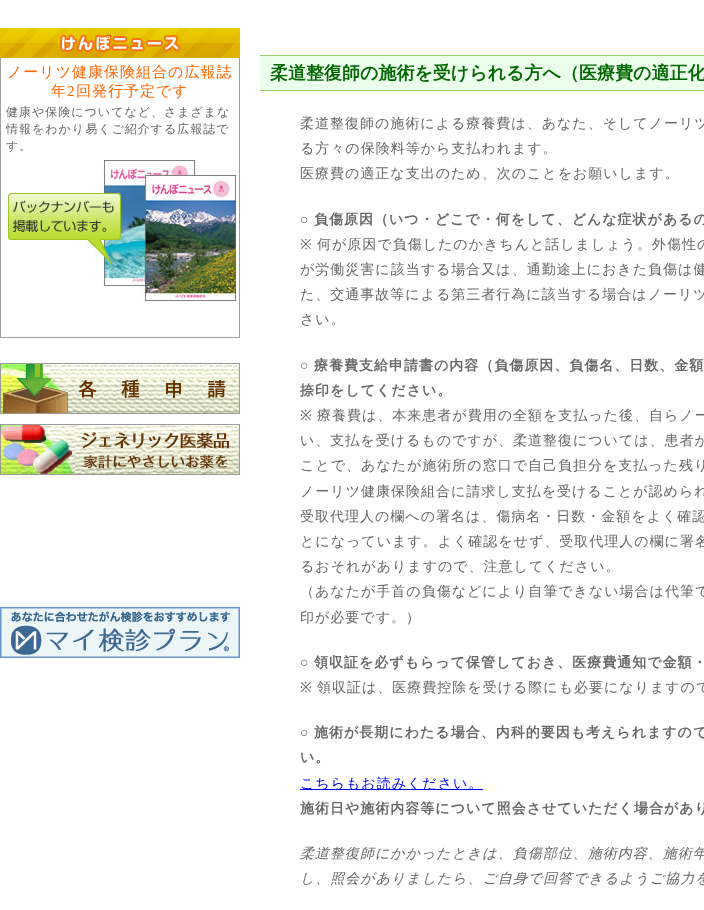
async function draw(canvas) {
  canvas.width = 704
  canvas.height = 910
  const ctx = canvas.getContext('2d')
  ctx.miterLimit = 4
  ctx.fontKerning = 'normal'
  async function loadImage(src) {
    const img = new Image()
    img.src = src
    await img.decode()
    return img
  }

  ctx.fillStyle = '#fff'
  ctx.fillRect(0, 0, 704, 910)
  ctx.drawImage(await loadImage('image0.png'), 0, 28, 240, 30)
  ctx.fillStyle = '#9f9f9f'
  ctx.fillRect(239, 58, 1, 280)
  ctx.fillRect(0, 337, 240, 1)
  ctx.fillRect(0, 58, 1, 280)
  ctx.letterSpacing = '1px'
  ctx.font = '500 15px WenQuanYi Zen Hei'
  ctx.fillStyle = '#f60'
  ctx.fillText('ノーリツ健康保険組合の広報誌', 7, 77)
  ctx.fillText('年', 51, 96)
  ctx.font = '15px Liberation Serif'
  ctx.fillText('2', 67, 96)
  ctx.font = '500 15px WenQuanYi Zen Hei'
  ctx.fillText('回発行予定です', 76, 96)
  ctx.font = '500 12px WenQuanYi Zen Hei'
  ctx.fillStyle = '#666'
  ctx.fillText('健康や保険についてなど、さまざまな', 6, 116)
  ctx.fillText('情報をわかり易くご紹介する広報誌で', 6, 133)
  ctx.fillText('す。', 6, 150)
  ctx.drawImage(await loadImage('image1.png'), 6, 160, 231, 142)
  ctx.drawImage(await loadImage('image2.png'), 0, 363, 240, 51)
  ctx.drawImage(await loadImage('image3.png'), 0, 424, 240, 51)
  ctx.drawImage(await loadImage('image4.png'), 0, 607, 240, 51)
  ctx.fillStyle = '#ecffec'
  ctx.fillRect(260, 56, 444, 34)
  ctx.fillStyle = '#9c6'
  ctx.fillRect(260, 55, 444, 1)
  ctx.fillRect(260, 90, 444, 1)
  ctx.letterSpacing = '0px'
  ctx.font = 'bold 18px WenQuanYi Zen Hei'
  ctx.fillStyle = '#060'
  ctx.fillText('柔道整復師の施術を受けられる方へ（医療費の適正化', 270, 79)
  ctx.letterSpacing = '1px'
  ctx.font = '500 14px WenQuanYi Zen Hei'
  ctx.fillStyle = '#666'
  ctx.fillText('柔道整復師の施術による療養費は、あなた、そしてノーリツ', 300, 128)
  ctx.fillText('る方々の保険料等から支払われます。', 300, 153)
  ctx.fillText('医療費の適正な支出のため、次のことをお願いします。', 300, 178)
  ctx.font = 'bold 14px Liberation Serif'
  ctx.fillText('○', 300, 224)
  ctx.font = 'bold 14px WenQuanYi Zen Hei'
  ctx.fillText('負傷原因（いつ・どこで・何をして、どんな症状があるの', 314, 224)
  ctx.font = '14px Noto Sans'
  ctx.fillText('※', 300, 249)
  ctx.font = '500 14px WenQuanYi Zen Hei'
  ctx.fillText('何が原因で負傷したのかきちんと話しましょう。外傷性の', 317, 249)
  ctx.fillText('が労働災害に該当する場合又は、通勤途上におきた負傷は健', 300, 274)
  ctx.fillText('た、交通事故等による第三者行為に該当する場合はノーリツ', 300, 299)
  ctx.fillText('さい。', 300, 324)
  ctx.font = 'bold 14px Liberation Serif'
  ctx.fillText('○', 300, 370)
  ctx.font = 'bold 14px WenQuanYi Zen Hei'
  ctx.fillText('療養費支給申請書の内容（負傷原因、負傷名、日数、金額', 314, 370)
  ctx.fillText('捺印をしてください。', 300, 395)
  ctx.font = '14px Noto Sans'
  ctx.fillText('※', 300, 420)
  ctx.font = '500 14px WenQuanYi Zen Hei'
  ctx.fillText('療養費は、本来患者が費用の全額を支払った後、自らノー', 317, 420)
  ctx.fillText('い、支払を受けるものですが、柔道整復については、患者が', 300, 445)
  ctx.fillText('ことで、あなたが施術所の窓口で自己負担分を支払った残り', 300, 470)
  ctx.fillText('ノーリツ健康保険組合に請求し支払を受けることが認められ', 300, 496)
  ctx.fillText('受取代理人の欄への署名は、傷病名・日数・金額をよく確認', 300, 521)
  ctx.fillText('とになっています。よく確認をせず、受取代理人の欄に署名', 300, 546)
  ctx.fillText('るおそれがありますので、注意してください。', 300, 571)
  ctx.fillText('（あなたが手首の負傷などにより自筆できない場合は代筆で', 300, 596)
  ctx.fillText('印が必要です。）', 300, 622)
  ctx.font = 'bold 14px Liberation Serif'
  ctx.fillText('○', 300, 667)
  ctx.font = 'bold 14px WenQuanYi Zen Hei'
  ctx.fillText('領収証を必ずもらって保管しておき、医療費通知で金額・', 314, 667)
  ctx.font = '14px Noto Sans'
  ctx.fillText('※', 300, 692)
  ctx.font = '500 14px WenQuanYi Zen Hei'
  ctx.fillText('領収証は、医療費控除を受ける際にも必要になりますので', 317, 692)
  ctx.font = 'bold 14px Liberation Serif'
  ctx.fillText('○', 300, 737)
  ctx.font = 'bold 14px WenQuanYi Zen Hei'
  ctx.fillText('施術が長期にわたる場合、内科的要因も考えられますので', 314, 737)
  ctx.fillText('い。', 300, 762)
  ctx.fillStyle = '#00e'
  ctx.fillRect(300, 789, 183, 1)
  ctx.font = '500 14px WenQuanYi Zen Hei'
  ctx.fillText('こちらもお読みください。', 300, 788)
  ctx.font = 'bold 14px WenQuanYi Zen Hei'
  ctx.fillStyle = '#666'
  ctx.fillText('施術日や施術内容等について照会させていただく場合があり', 300, 813)
  ctx.font = 'italic 500 14px WenQuanYi Zen Hei'
  ctx.fillText('柔道整復師にかかったときは、負傷部位、施術内容、施術年', 300, 858)
  ctx.fillText('し、照会がありましたら、ご自身で回答できるようご協力を', 300, 883)
}

draw(document.querySelector('canvas'))
